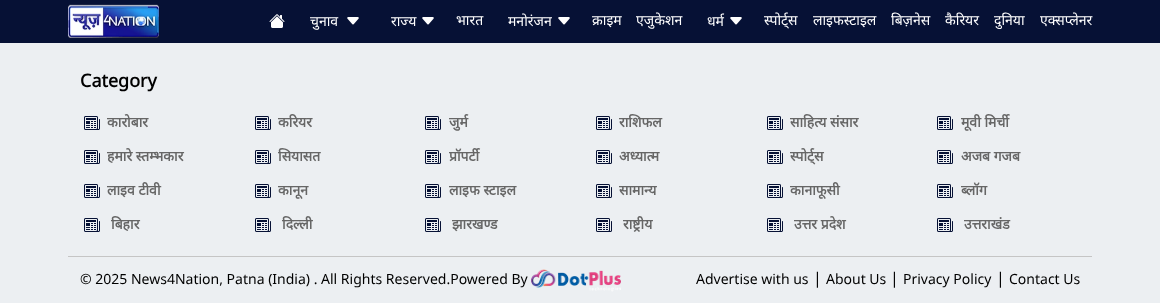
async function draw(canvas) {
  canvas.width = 1160
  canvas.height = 303
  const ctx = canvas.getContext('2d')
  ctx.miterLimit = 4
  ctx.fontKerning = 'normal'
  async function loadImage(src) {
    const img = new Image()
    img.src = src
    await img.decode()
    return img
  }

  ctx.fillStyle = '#eceff2'
  ctx.fillRect(0, 0, 1160, 303)
  ctx.fillStyle = '#061135'
  ctx.fillRect(0, 0, 1160, 43)
  ctx.drawImage(await loadImage('image0.png'), 68, 4, 91, 34)
  ctx.drawImage(await loadImage('image1.png'), 269, 14, 16, 14)
  ctx.font = '14px Noto Sans'
  ctx.fillStyle = '#fff'
  ctx.fillText('चुनाव', 310, 26)
  ctx.drawImage(await loadImage('image2.png'), 347, 17, 12, 8)
  ctx.fillText('राज्य', 391, 26)
  ctx.drawImage(await loadImage('image2.png'), 422, 17, 12, 8)
  ctx.fillText('भारत', 456, 25)
  ctx.fillText('मनोरंजन', 508, 26)
  ctx.drawImage(await loadImage('image2.png'), 558, 17, 12, 8)
  ctx.fillText('क्राइम', 592, 25)
  ctx.fillText('एजुकेशन', 636, 25)
  ctx.fillText('धर्म', 707, 26)
  ctx.drawImage(await loadImage('image2.png'), 730, 17, 12, 8)
  ctx.fillText('स्पोर्ट्स', 764, 25)
  ctx.fillText('लाइफस्टाइल', 813, 25)
  ctx.fillText('बिज़नेस', 891, 25)
  ctx.fillText('कैरियर', 945, 25)
  ctx.fillText('दुनिया', 994, 25)
  ctx.fillText('एक्सप्लेनर', 1040, 25)
  ctx.font = 'bold 18px Noto Sans'
  ctx.fillStyle = '#000'
  ctx.fillText('Category', 80, 87)
  ctx.drawImage(await loadImage('image3.png'), 84, 116, 16, 14)
  ctx.font = 'bold 14px Noto Sans'
  ctx.fillStyle = '#666'
  ctx.fillText('कारोबार', 107, 127)
  ctx.drawImage(await loadImage('image3.png'), 255, 116, 16, 14)
  ctx.fillText('करियर', 278, 127)
  ctx.drawImage(await loadImage('image3.png'), 425, 116, 16, 14)
  ctx.fillText('जुर्म', 449, 127)
  ctx.drawImage(await loadImage('image3.png'), 596, 116, 16, 14)
  ctx.fillText('राशिफल', 619, 127)
  ctx.drawImage(await loadImage('image3.png'), 767, 116, 16, 14)
  ctx.fillText('साहित्य संसार', 790, 127)
  ctx.drawImage(await loadImage('image3.png'), 937, 116, 16, 14)
  ctx.fillText('मूवी मिर्ची', 961, 127)
  ctx.drawImage(await loadImage('image3.png'), 84, 150, 16, 14)
  ctx.fillText('हमारे स्तम्भकार', 107, 161)
  ctx.drawImage(await loadImage('image3.png'), 255, 150, 16, 14)
  ctx.fillText('सियासत', 278, 161)
  ctx.drawImage(await loadImage('image3.png'), 425, 150, 16, 14)
  ctx.fillText('प्रॉपर्टी', 449, 161)
  ctx.drawImage(await loadImage('image3.png'), 596, 150, 16, 14)
  ctx.fillText('अध्यात्म', 619, 161)
  ctx.drawImage(await loadImage('image3.png'), 767, 150, 16, 14)
  ctx.fillText('स्पोर्ट्स', 790, 161)
  ctx.drawImage(await loadImage('image3.png'), 937, 150, 16, 14)
  ctx.fillText('अजब गजब', 961, 161)
  ctx.drawImage(await loadImage('image3.png'), 84, 184, 16, 14)
  ctx.fillText('लाइव टीवी', 107, 195)
  ctx.drawImage(await loadImage('image3.png'), 255, 184, 16, 14)
  ctx.fillText('कानून', 278, 195)
  ctx.drawImage(await loadImage('image3.png'), 425, 184, 16, 14)
  ctx.fillText('लाइफ स्टाइल', 449, 195)
  ctx.drawImage(await loadImage('image3.png'), 596, 184, 16, 14)
  ctx.fillText('सामान्य', 619, 195)
  ctx.drawImage(await loadImage('image3.png'), 767, 184, 16, 14)
  ctx.fillText('कानाफूसी', 790, 195)
  ctx.drawImage(await loadImage('image3.png'), 937, 184, 16, 14)
  ctx.fillText('ब्लॉग', 961, 195)
  ctx.drawImage(await loadImage('image3.png'), 84, 218, 16, 14)
  ctx.fillText('बिहार', 111, 229)
  ctx.drawImage(await loadImage('image3.png'), 255, 218, 16, 14)
  ctx.fillText('दिल्ली', 282, 229)
  ctx.drawImage(await loadImage('image3.png'), 425, 218, 16, 14)
  ctx.fillText('झारखण्ड', 452, 229)
  ctx.drawImage(await loadImage('image3.png'), 596, 218, 16, 14)
  ctx.fillText('राष्ट्रीय', 623, 229)
  ctx.drawImage(await loadImage('image3.png'), 767, 218, 16, 14)
  ctx.fillText('उत्तर प्रदेश', 794, 229)
  ctx.drawImage(await loadImage('image3.png'), 937, 218, 16, 14)
  ctx.fillText('उत्तराखंड', 964, 229)
  ctx.fillStyle = '#c5c5c5'
  ctx.fillRect(68, 256, 1024, 1)
  ctx.font = '14px Noto Sans'
  ctx.fillStyle = '#000'
  ctx.fillText('© 2025 News4Nation, Patna (India) . All Rights Reserved.Powered By', 80, 284)
  ctx.drawImage(await loadImage('image4.png'), 531, 269, 90, 23)
  ctx.fillText('Advertise with us', 696, 284)
  ctx.font = '16px Noto Sans'
  ctx.fillText('|', 813, 284)
  ctx.font = '14px Noto Sans'
  ctx.fillText('About Us', 826, 284)
  ctx.font = '16px Noto Sans'
  ctx.fillText('|', 890, 284)
  ctx.font = '14px Noto Sans'
  ctx.fillText('Privacy Policy', 903, 284)
  ctx.font = '16px Noto Sans'
  ctx.fillText('|', 996, 284)
  ctx.font = '14px Noto Sans'
  ctx.fillText('Contact Us', 1009, 284)
}

draw(document.querySelector('canvas'))
